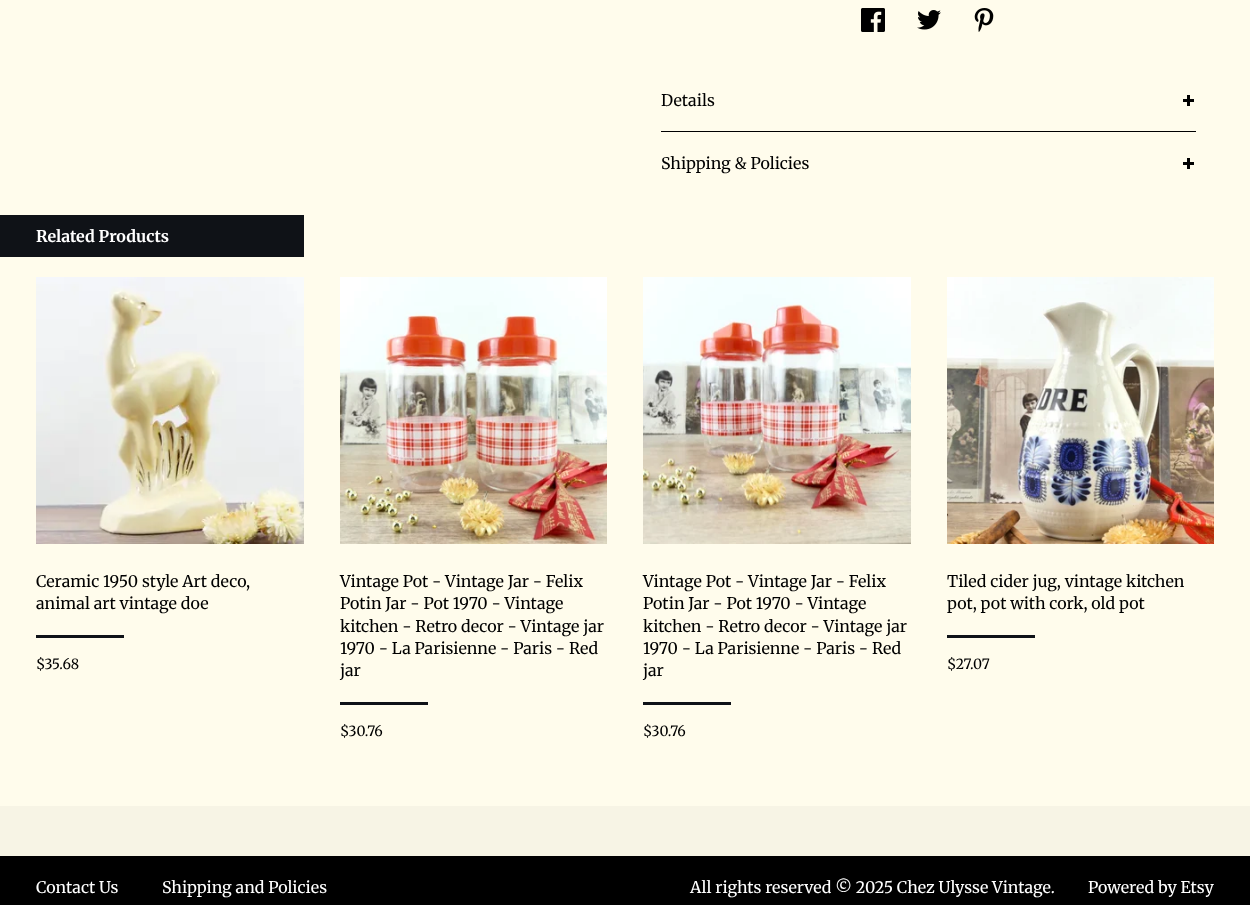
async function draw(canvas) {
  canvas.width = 1250
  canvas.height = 905
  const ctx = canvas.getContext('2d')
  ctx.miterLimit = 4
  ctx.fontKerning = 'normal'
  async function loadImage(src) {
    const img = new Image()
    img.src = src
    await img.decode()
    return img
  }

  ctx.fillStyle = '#fffcec'
  ctx.fillRect(0, 0, 1250, 905)
  ctx.drawImage(await loadImage('image0.png'), 861, 8, 24, 24)
  ctx.drawImage(await loadImage('image1.png'), 917, 10, 24, 20)
  ctx.drawImage(await loadImage('image2.png'), 974, 8, 20, 24)
  ctx.fillStyle = '#000'
  ctx.fillRect(661, 131, 535, 1)
  ctx.font = '16px Merriweather'
  ctx.fillText('Details', 661, 106)
  ctx.fillRect(1183, 99, 11, 3)
  ctx.fillRect(1187, 95, 3, 11)
  ctx.fillText('Shipping & Policies', 661, 169)
  ctx.fillRect(1183, 162, 11, 3)
  ctx.fillRect(1187, 158, 3, 11)
  ctx.fillStyle = '#0f1217'
  ctx.fillRect(0, 215, 304, 42)
  ctx.font = 'bold 16px Merriweather'
  ctx.fillStyle = '#fff'
  ctx.fillText('Related Products', 36, 242)
  ctx.drawImage(await loadImage('image3.png'), 36, 277, 268, 267)
  ctx.font = '16px Merriweather'
  ctx.fillStyle = '#000'
  ctx.fillText('Ceramic 1950 style Art deco,', 36, 587)
  ctx.fillText('animal art vintage doe', 36, 609)
  ctx.fillStyle = '#0f1217'
  ctx.fillRect(36, 635, 88, 3)
  ctx.font = '14px Merriweather'
  ctx.fillStyle = '#000'
  ctx.fillText('$35.68', 36, 669)
  ctx.drawImage(await loadImage('image4.png'), 340, 277, 267, 267)
  ctx.font = '16px Merriweather'
  ctx.fillText('Vintage Pot - Vintage Jar - Felix', 340, 587)
  ctx.fillText('Potin Jar - Pot 1970 - Vintage', 340, 609)
  ctx.fillText('kitchen - Retro decor - Vintage jar', 340, 632)
  ctx.fillText('1970 - La Parisienne - Paris - Red', 340, 654)
  ctx.fillText('jar', 340, 676)
  ctx.fillStyle = '#0f1217'
  ctx.fillRect(340, 702, 88, 3)
  ctx.font = '14px Merriweather'
  ctx.fillStyle = '#000'
  ctx.fillText('$30.76', 340, 736)
  ctx.drawImage(await loadImage('image5.png'), 643, 277, 268, 267)
  ctx.font = '16px Merriweather'
  ctx.fillText('Vintage Pot - Vintage Jar - Felix', 643, 587)
  ctx.fillText('Potin Jar - Pot 1970 - Vintage', 643, 609)
  ctx.fillText('kitchen - Retro decor - Vintage jar', 643, 632)
  ctx.fillText('1970 - La Parisienne - Paris - Red', 643, 654)
  ctx.fillText('jar', 643, 676)
  ctx.fillStyle = '#0f1217'
  ctx.fillRect(643, 702, 88, 3)
  ctx.font = '14px Merriweather'
  ctx.fillStyle = '#000'
  ctx.fillText('$30.76', 643, 736)
  ctx.drawImage(await loadImage('image6.png'), 947, 277, 267, 267)
  ctx.font = '16px Merriweather'
  ctx.fillText('Tiled cider jug, vintage kitchen', 947, 587)
  ctx.fillText('pot, pot with cork, old pot', 947, 609)
  ctx.fillStyle = '#0f1217'
  ctx.fillRect(947, 635, 88, 3)
  ctx.font = '14px Merriweather'
  ctx.fillStyle = '#000'
  ctx.fillText('$27.07', 947, 669)
  ctx.fillStyle = '#f7f4e5'
  ctx.fillRect(0, 806, 1250, 50)
  ctx.fillStyle = '#000'
  ctx.fillRect(0, 856, 1250, 49)
  ctx.font = '16px Merriweather'
  ctx.fillStyle = '#fff'
  ctx.fillText('Contact Us', 36, 893)
  ctx.fillText('Shipping and Policies', 162, 893)
  ctx.fillText('All rights reserved © 2025 Chez Ulysse Vintage.', 690, 893)
  ctx.fillText('Powered by Etsy', 1088, 893)
}

draw(document.querySelector('canvas'))
